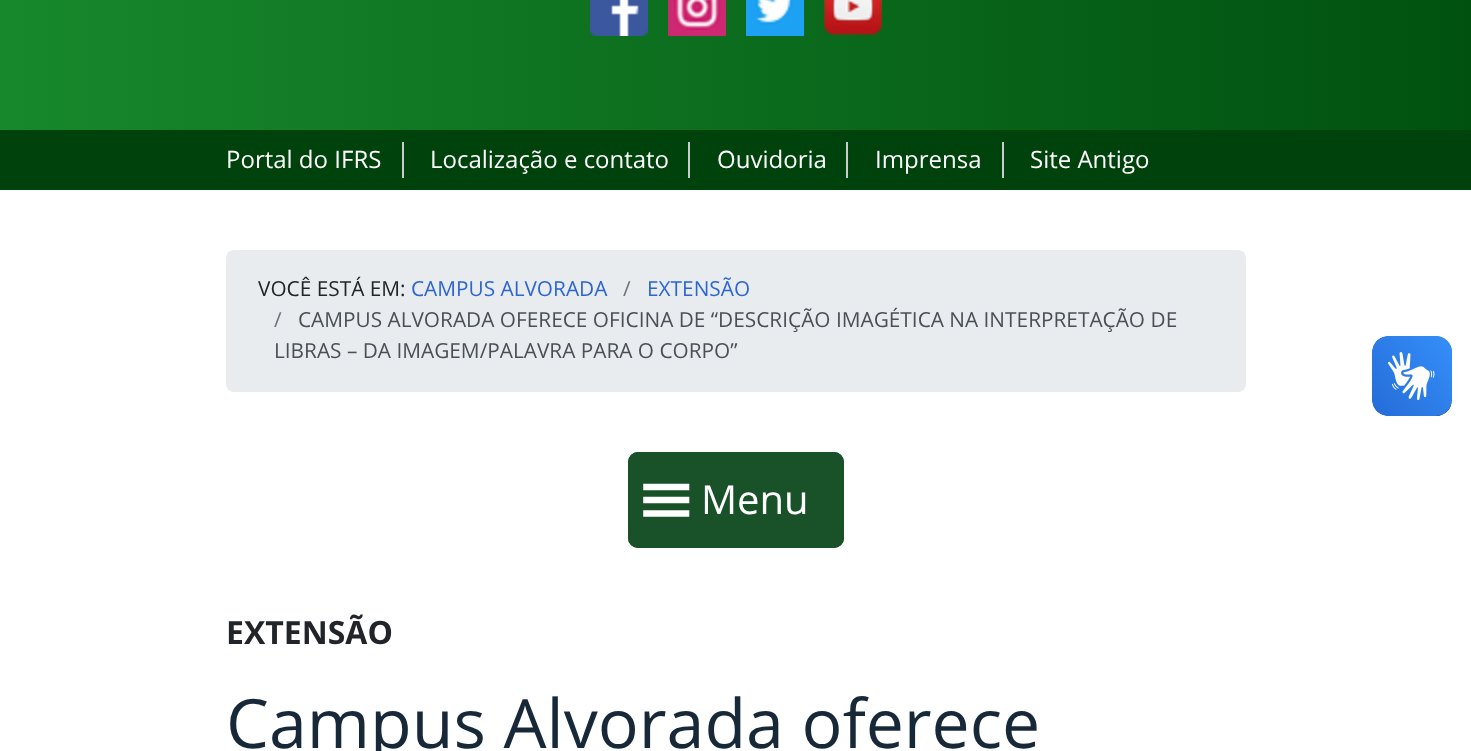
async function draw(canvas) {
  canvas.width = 1471
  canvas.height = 751
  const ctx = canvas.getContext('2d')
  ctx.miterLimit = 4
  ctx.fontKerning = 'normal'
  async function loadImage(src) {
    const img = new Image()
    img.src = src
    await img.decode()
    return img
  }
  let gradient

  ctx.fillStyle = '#fff'
  ctx.fillRect(0, 0, 1471, 751)
  gradient = ctx.createLinearGradient(0, -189, 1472, -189)
  gradient.addColorStop(0, '#17882c')
  gradient.addColorStop(1, '#00510f')
  ctx.fillStyle = gradient
  ctx.fillRect(0, 0, 1471, 130)
  ctx.drawImage(await loadImage('image0.png'), 590, 0, 58, 36)
  ctx.drawImage(await loadImage('image1.png'), 668, 0, 58, 36)
  ctx.drawImage(await loadImage('image2.png'), 746, 0, 58, 36)
  ctx.drawImage(await loadImage('image3.png'), 824, 0, 58, 36)
  ctx.fillStyle = '#00420c'
  ctx.fillRect(0, 130, 1471, 60)
  ctx.fillStyle = '#ccc'
  ctx.fillRect(402, 142, 2, 36)
  ctx.font = '24px Open Sans'
  ctx.fillStyle = '#fff'
  ctx.fillText('Portal do IFRS', 226, 168)
  ctx.fillStyle = '#ccc'
  ctx.fillRect(688, 142, 2, 36)
  ctx.fillStyle = '#fff'
  ctx.fillText('Localização e contato', 430, 168)
  ctx.fillStyle = '#ccc'
  ctx.fillRect(846, 142, 2, 36)
  ctx.fillStyle = '#fff'
  ctx.fillText('Ouvidoria', 717, 168)
  ctx.fillStyle = '#ccc'
  ctx.fillRect(1002, 142, 2, 36)
  ctx.fillStyle = '#fff'
  ctx.fillText('Imprensa', 875, 168)
  ctx.fillText('Site Antigo', 1030, 168)
  ctx.fillStyle = '#e9ecef'
  ctx.beginPath()
  ctx.roundRect(226, 250, 1020, 142, 8)
  ctx.fill()
  ctx.font = '20.8px Open Sans'
  ctx.fillStyle = '#212529'
  ctx.fillText('VOCÊ ESTÁ EM:', 258, 296)
  ctx.fillStyle = '#2c66ce'
  ctx.fillText('CAMPUS ALVORADA', 411, 296)
  ctx.fillStyle = '#6c757d'
  ctx.fillText('/', 623, 296)
  ctx.fillStyle = '#2c66ce'
  ctx.fillText('EXTENSÃO', 647, 296)
  ctx.fillStyle = '#6c757d'
  ctx.fillText('/', 274, 327)
  ctx.fillStyle = '#495057'
  ctx.fillText('CAMPUS ALVORADA OFERECE OFICINA DE “DESCRIÇÃO IMAGÉTICA NA INTERPRETAÇÃO DE', 298, 327)
  ctx.fillText('LIBRAS – DA IMAGEM/PALAVRA PARA O CORPO”', 274, 358)
  ctx.drawImage(await loadImage('image4.png'), 1372, 336, 80, 80)
  ctx.drawImage(await loadImage('image5.png'), 1372, 336, 80, 80)
  ctx.fillStyle = '#195128'
  ctx.beginPath()
  ctx.roundRect(628, 452, 216, 96, 10)
  ctx.fill()
  ctx.beginPath()
  ctx.moveTo(646.5, 500)
  ctx.lineTo(686, 500)
  ctx.moveTo(646.5, 487)
  ctx.lineTo(686, 487)
  ctx.moveTo(646.5, 513.5)
  ctx.lineTo(686, 513.5)
  ctx.strokeStyle = '#fff'
  ctx.lineWidth = 6.6
  ctx.lineCap = 'square'
  ctx.stroke()
  ctx.beginPath()
  ctx.roundRect(629, 453, 214, 94, 9)
  ctx.strokeStyle = '#195128'
  ctx.lineWidth = 2
  ctx.stroke()
  ctx.font = '40px Open Sans'
  ctx.fillStyle = '#fff'
  ctx.fillText('Menu', 701, 514)
  ctx.font = 'bold 32px Open Sans'
  ctx.fillStyle = '#212529'
  ctx.fillText('EXTENSÃO', 226, 644)
  ctx.font = '68px Open Sans'
  ctx.fillStyle = '#172938'
  ctx.fillText('Campus Alvorada oferece', 226, 748)
}

draw(document.querySelector('canvas'))
